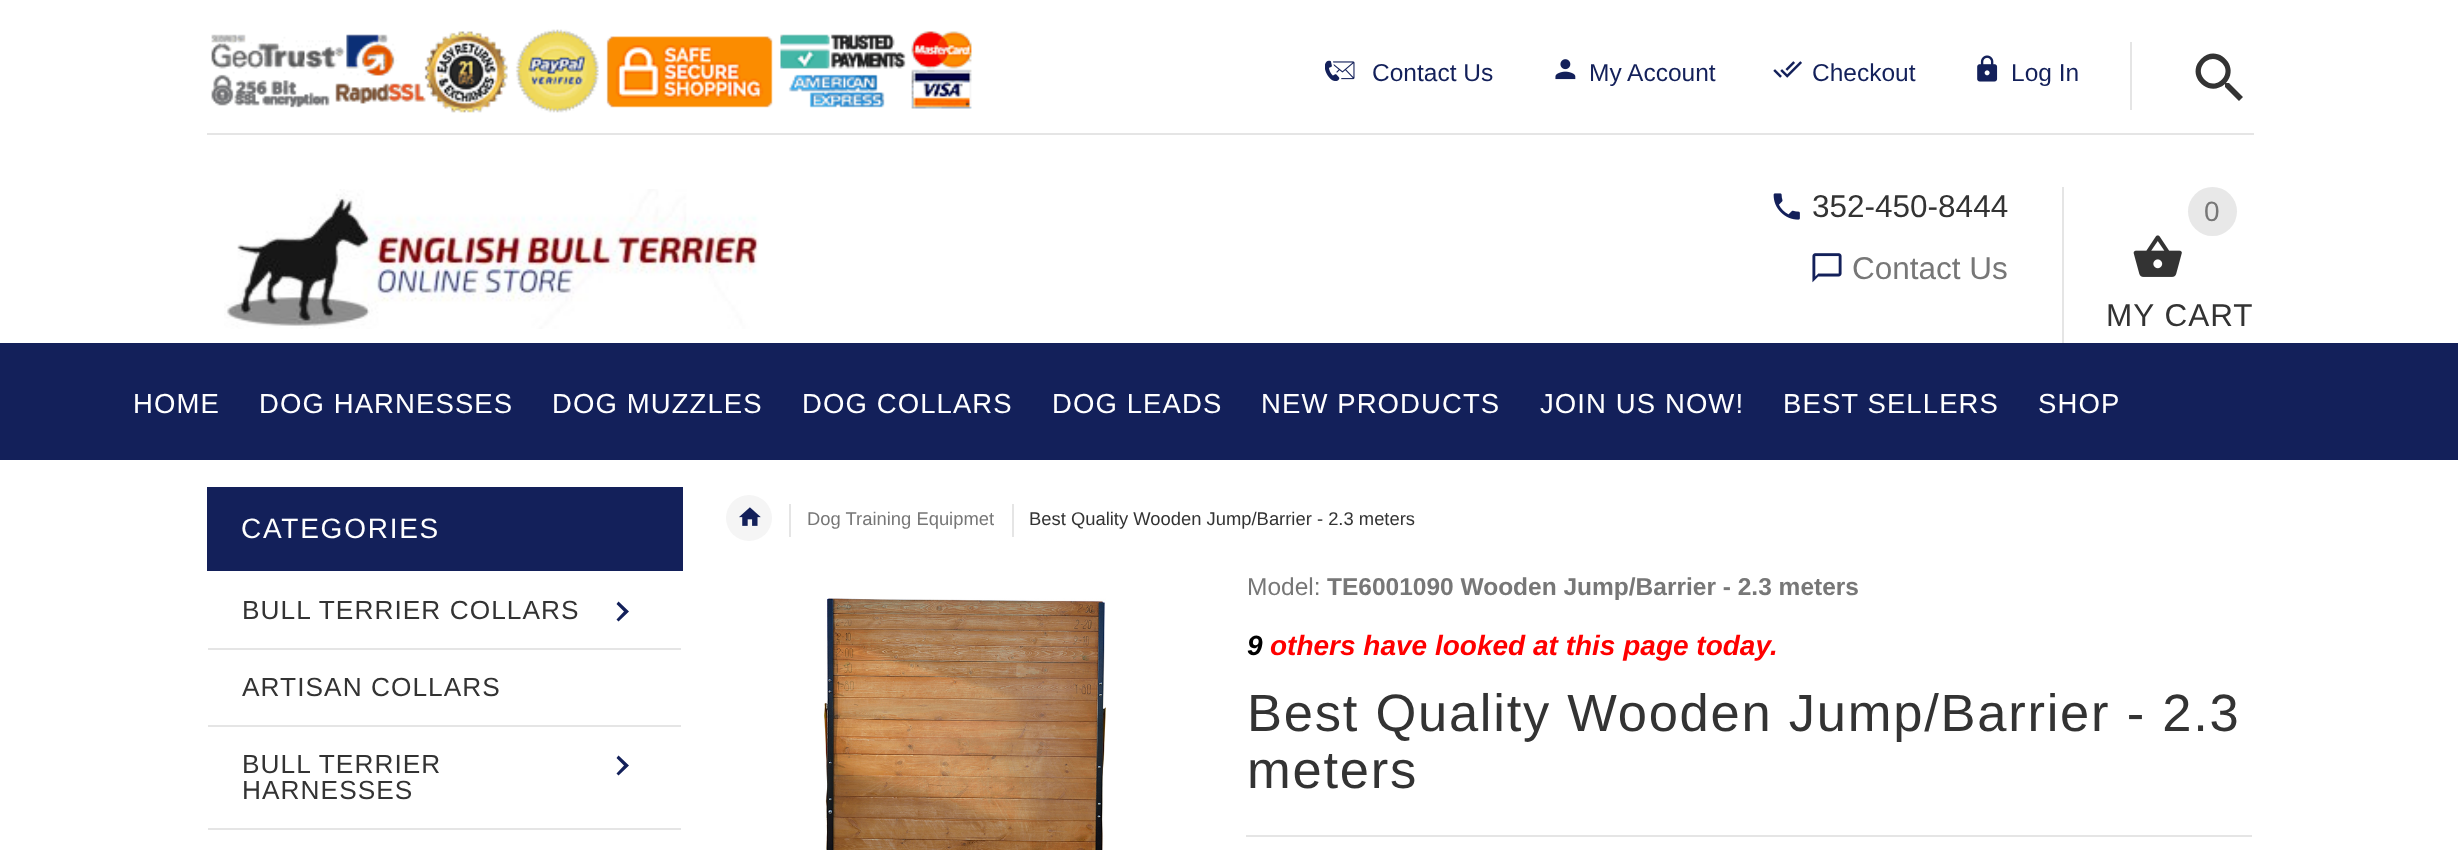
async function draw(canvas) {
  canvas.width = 2458
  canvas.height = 850
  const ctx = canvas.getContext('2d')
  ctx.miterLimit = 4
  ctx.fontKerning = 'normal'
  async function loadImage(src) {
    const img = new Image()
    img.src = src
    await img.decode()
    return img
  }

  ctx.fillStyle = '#fff'
  ctx.fillRect(0, 0, 2458, 850)
  ctx.drawImage(await loadImage('image0.png'), 211, 29, 761, 84)
  ctx.fillStyle = '#e5e5e5'
  ctx.fillRect(2130, 42, 2, 68)
  ctx.drawImage(await loadImage('image1.png'), 1325, 60, 30, 21)
  ctx.font = '24.5px Liberation Sans'
  ctx.fillStyle = '#13205a'
  ctx.fillText('Contact Us', 1372, 81)
  ctx.drawImage(await loadImage('image2.png'), 1555, 59, 21, 21)
  ctx.fillText('My Account', 1589, 81)
  ctx.drawImage(await loadImage('image3.png'), 1773, 61, 29, 17)
  ctx.fillText('Checkout', 1812, 81)
  ctx.drawImage(await loadImage('image4.png'), 1977, 55, 21, 27)
  ctx.fillText('Log In', 2011, 81)
  ctx.fillStyle = '#333'
  ctx.beginPath()
  ctx.moveTo(2205, 80)
  ctx.bezierCurveTo(2216, 91, 2233, 74, 2222, 63)
  ctx.bezierCurveTo(2210, 51, 2193, 68, 2205, 80)
  ctx.closePath()
  ctx.moveTo(2229, 83)
  ctx.lineTo(2243, 97)
  ctx.lineTo(2239, 101)
  ctx.lineTo(2225, 87)
  ctx.lineTo(2225, 85)
  ctx.lineTo(2225, 84)
  ctx.bezierCurveTo(2208, 99, 2185, 75, 2201, 59)
  ctx.bezierCurveTo(2217, 43, 2241, 66, 2226, 83)
  ctx.lineTo(2227, 83)
  ctx.closePath()
  ctx.fill()
  ctx.fillStyle = '#e5e5e5'
  ctx.fillRect(207, 133, 2047, 2)
  ctx.drawImage(await loadImage('image5.png'), 224, 189, 535, 140)
  ctx.drawImage(await loadImage('image6.png'), 1773, 193, 27, 27)
  ctx.font = '31.5px Liberation Sans'
  ctx.fillStyle = '#333'
  ctx.fillText('352-450-8444', 1812, 217)
  ctx.drawImage(await loadImage('image7.png'), 1812, 253, 30, 30)
  ctx.fillStyle = '#777'
  ctx.fillText('Contact Us', 1852, 279)
  ctx.fillStyle = '#e5e5e5'
  ctx.fillRect(2062, 187, 2, 156)
  ctx.fillStyle = '#e8e8e8'
  ctx.beginPath()
  ctx.arc(2212.5, 211.5, 24.5, 0, 2 * Math.PI)
  ctx.fill()
  ctx.font = '28px Liberation Sans'
  ctx.fillStyle = '#777'
  ctx.fillText('0', 2204, 221)
  ctx.drawImage(await loadImage('image8.png'), 2133, 235, 49, 42)
  ctx.letterSpacing = '1px'
  ctx.font = '31.5px Liberation Sans'
  ctx.fillStyle = '#333'
  ctx.fillText('MY CART', 2106, 326)
  ctx.fillStyle = '#13205a'
  ctx.fillRect(0, 343, 2458, 117)
  ctx.letterSpacing = '1.1px'
  ctx.font = '27.5px Liberation Sans'
  ctx.fillStyle = '#fff'
  ctx.fillText('HOME', 133, 413)
  ctx.fillText('DOG HARNESSES', 259, 413)
  ctx.fillText('DOG MUZZLES', 552, 413)
  ctx.fillText('DOG COLLARS', 802, 413)
  ctx.fillText('DOG LEADS', 1052, 413)
  ctx.fillText('NEW PRODUCTS', 1261, 413)
  ctx.fillText('JOIN US NOW!', 1540, 413)
  ctx.fillText('BEST SELLERS', 1783, 413)
  ctx.fillText('SHOP', 2038, 413)
  ctx.fillStyle = '#13205a'
  ctx.fillRect(207, 487, 476, 84)
  ctx.letterSpacing = '1.75px'
  ctx.font = '28px Liberation Sans'
  ctx.fillStyle = '#fff'
  ctx.fillText('CATEGORIES', 241, 538)
  ctx.fillStyle = '#e5e5e5'
  ctx.fillRect(208, 648, 473, 2)
  ctx.letterSpacing = '1.05px'
  ctx.font = '26.25px Liberation Sans'
  ctx.fillStyle = '#333'
  ctx.fillText('BULL TERRIER COLLARS', 242, 619)
  ctx.fillStyle = '#13205a'
  ctx.beginPath()
  ctx.moveTo(618.5, 601.5)
  ctx.lineTo(629, 611.5)
  ctx.lineTo(618.5, 621.5)
  ctx.lineTo(616.5, 619.5)
  ctx.lineTo(624, 611.5)
  ctx.lineTo(616.5, 604)
  ctx.closePath()
  ctx.fill()
  ctx.fillStyle = '#e5e5e5'
  ctx.fillRect(208, 725, 473, 2)
  ctx.fillStyle = '#333'
  ctx.fillText('ARTISAN COLLARS', 242, 696)
  ctx.fillStyle = '#e5e5e5'
  ctx.fillRect(208, 828, 473, 2)
  ctx.fillStyle = '#333'
  ctx.fillText('BULL TERRIER', 242, 773)
  ctx.fillStyle = '#13205a'
  ctx.beginPath()
  ctx.moveTo(618.5, 755.5)
  ctx.lineTo(629, 765.5)
  ctx.lineTo(618.5, 775.5)
  ctx.lineTo(616.5, 773.5)
  ctx.lineTo(624, 765.5)
  ctx.lineTo(616.5, 758)
  ctx.closePath()
  ctx.fill()
  ctx.fillStyle = '#333'
  ctx.fillText('HARNESSES', 242, 799)
  ctx.fillStyle = '#f5f5f5'
  ctx.beginPath()
  ctx.arc(749, 518, 23, 0, 2 * Math.PI)
  ctx.fill()
  ctx.drawImage(await loadImage('image9.png'), 739, 507, 22, 19)
  ctx.fillStyle = '#e5e5e5'
  ctx.fillRect(789, 504, 2, 33)
  ctx.letterSpacing = '0px'
  ctx.font = '18.4px Liberation Sans'
  ctx.fillStyle = '#777'
  ctx.fillText('Dog Training Equipmet', 807, 525)
  ctx.fillStyle = '#e5e5e5'
  ctx.fillRect(1012, 504, 2, 33)
  ctx.fillStyle = '#333'
  ctx.fillText('Best Quality Wooden Jump/Barrier - 2.3 meters', 1029, 525)
  ctx.drawImage(await loadImage('image10.png'), 824, 598, 282, 252)
  ctx.font = '24.5px Liberation Sans'
  ctx.fillStyle = '#777'
  ctx.fillText('Model:', 1247, 595)
  ctx.font = 'bold 24.5px Liberation Sans'
  ctx.fillText('TE6001090 Wooden Jump/Barrier - 2.3 meters', 1327, 595)
  ctx.font = 'italic bold 28px Liberation Sans'
  ctx.fillStyle = '#000'
  ctx.fillText('9', 1247, 655)
  ctx.fillStyle = '#f00'
  ctx.fillText('others have looked at this page today.', 1270, 655)
  ctx.letterSpacing = '1.75px'
  ctx.font = '52.5px Liberation Sans'
  ctx.fillStyle = '#333'
  ctx.fillText('Best Quality Wooden Jump/Barrier - 2.3', 1247, 731)
  ctx.fillText('meters', 1247, 788)
  ctx.fillStyle = '#e5e5e5'
  ctx.fillRect(1246, 835, 1006, 2)
}

draw(document.querySelector('canvas'))
